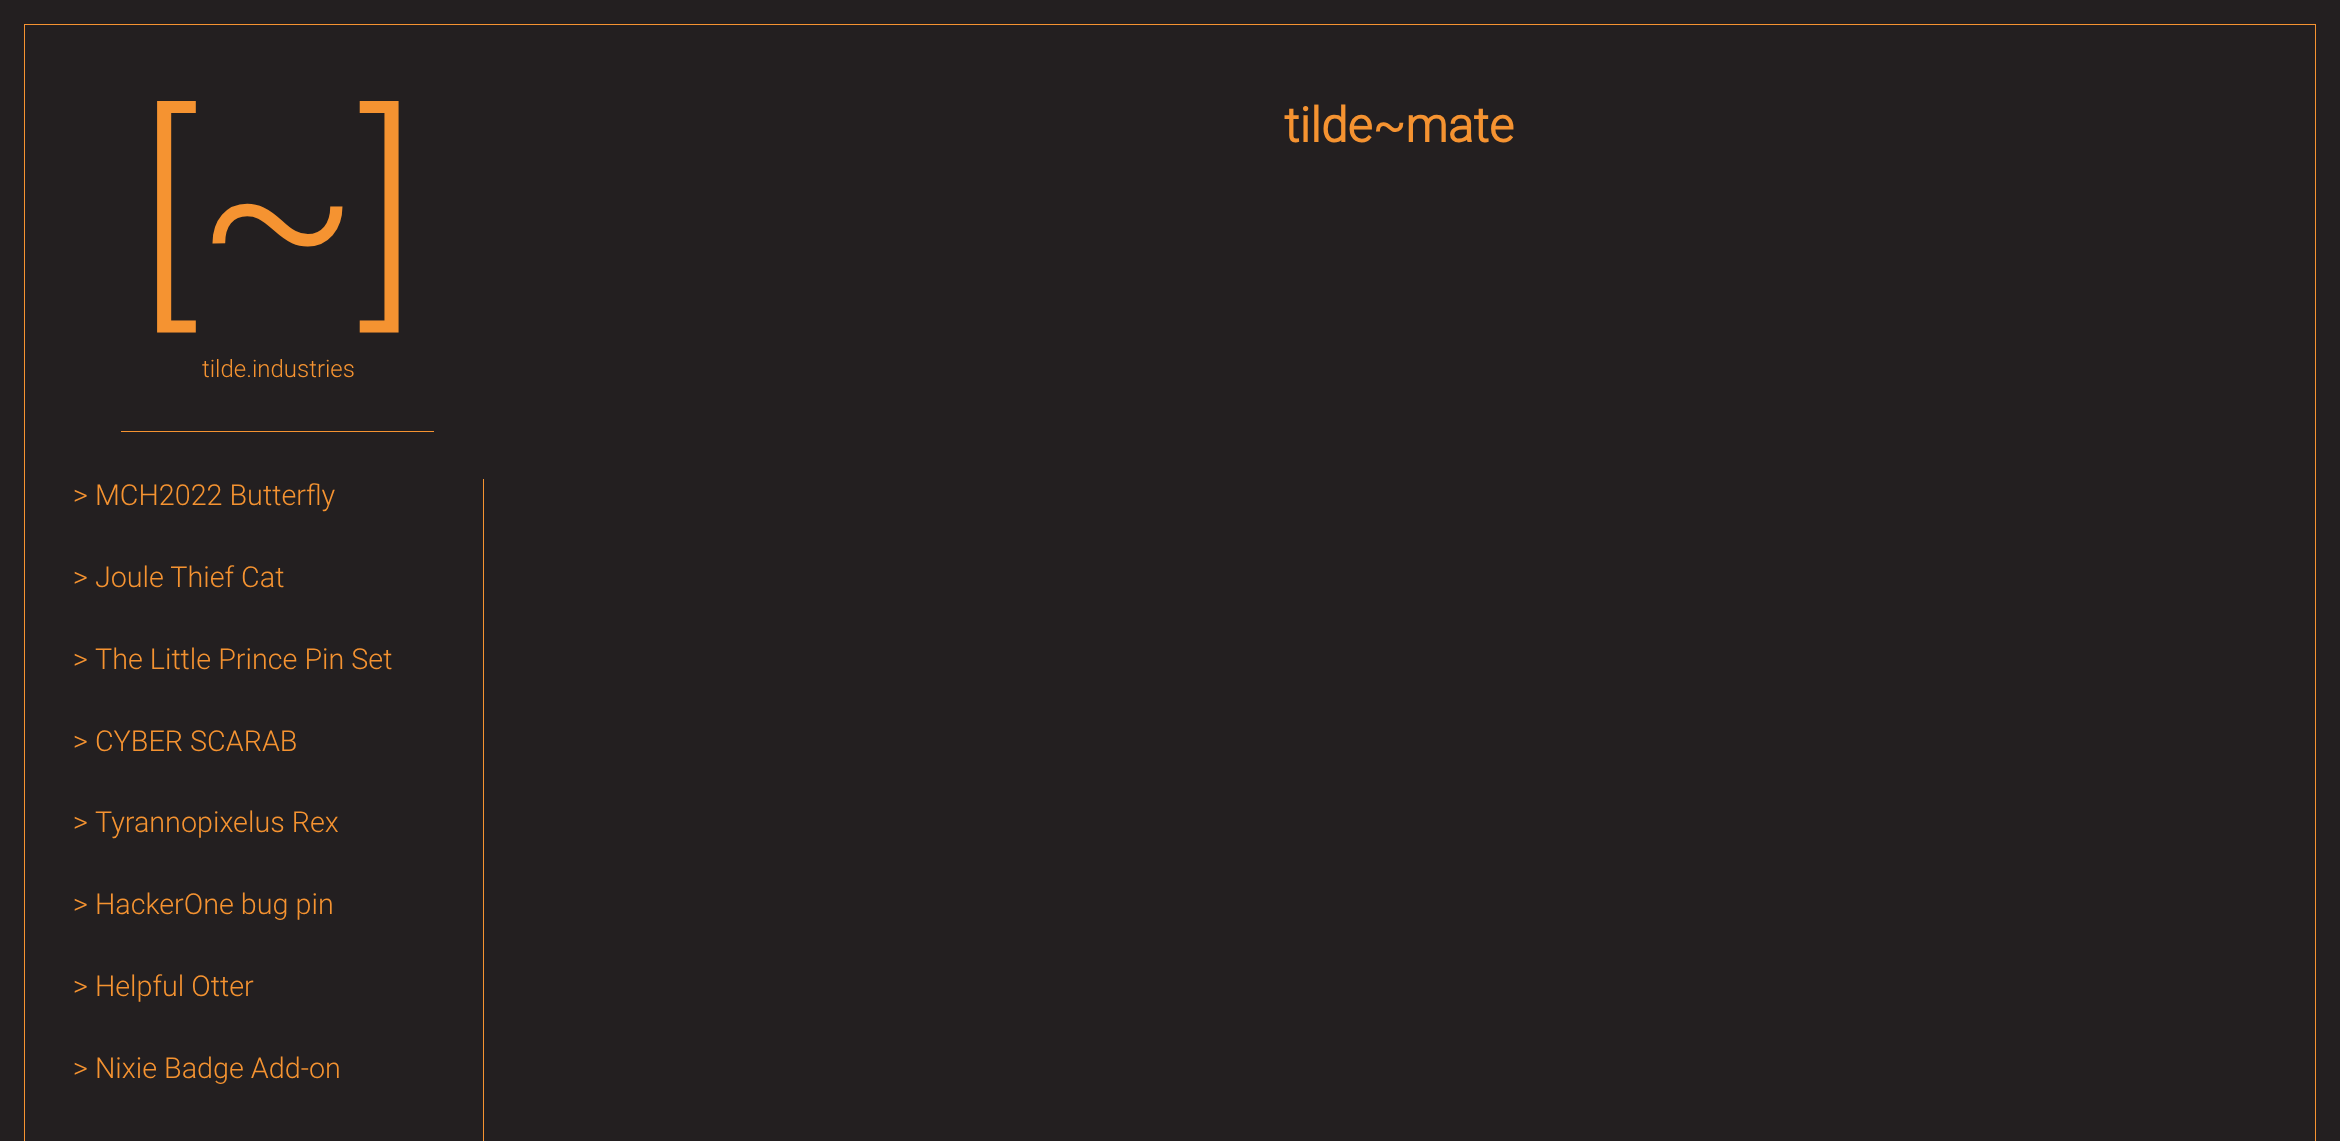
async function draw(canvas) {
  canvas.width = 2340
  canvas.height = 1141
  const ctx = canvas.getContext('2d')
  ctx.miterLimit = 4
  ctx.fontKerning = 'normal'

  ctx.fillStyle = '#231f20'
  ctx.fillRect(0, 0, 2340, 1141)
  ctx.strokeStyle = '#f59331'
  ctx.strokeRect(24.5, 24.5, 2291, 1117)
  ctx.font = '300 240px Roboto'
  ctx.fillStyle = '#f59331'
  ctx.fillText('[~]', 138, 296)
  ctx.font = '300 24px Roboto'
  ctx.fillText('tilde.industries', 202, 377)
  ctx.fillRect(483, 479, 1, 662)
  ctx.fillRect(121, 431, 313, 1)
  ctx.font = '300 28.75px Roboto'
  ctx.fillText('> MCH2022 Butterfly', 73, 505)
  ctx.fillText('> Joule Thief Cat', 73, 587)
  ctx.fillText('>', 73, 669)
  ctx.fillText('The Little Prince Pin Set', 95, 669)
  ctx.fillText('> CYBER SCARAB', 73, 751)
  ctx.fillText('>', 73, 832)
  ctx.fillText('Tyrannopixelus Rex', 95, 832)
  ctx.fillText('> HackerOne bug pin', 73, 914)
  ctx.fillText('> Helpful Otter', 73, 996)
  ctx.fillText('> Nixie Badge Add-on', 73, 1078)
  ctx.font = 'bold 48px Roboto'
  ctx.fillText('tilde~mate', 1284, 142)
}

draw(document.querySelector('canvas'))
